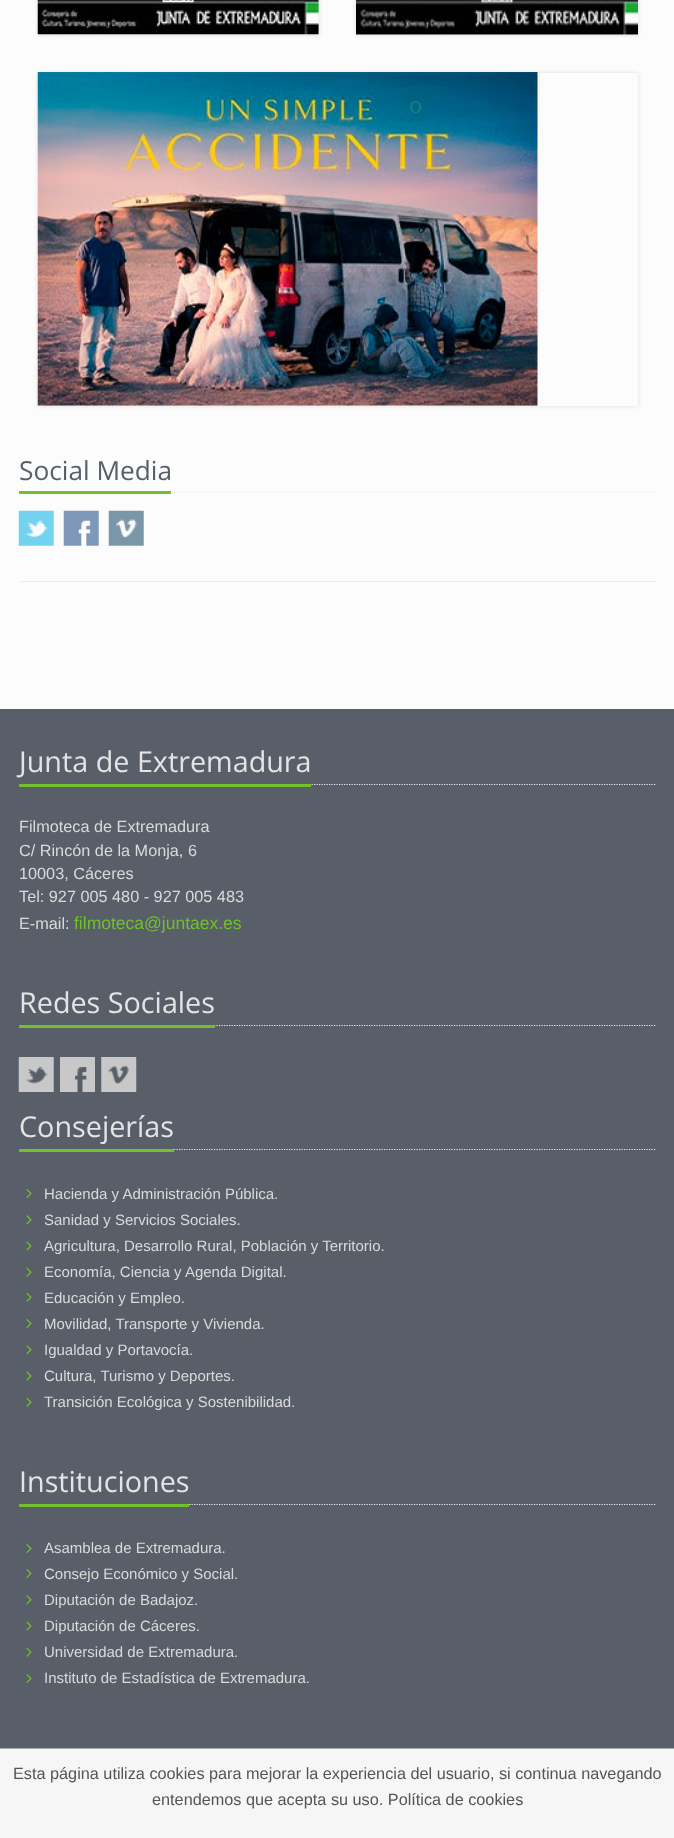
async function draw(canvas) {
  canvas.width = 674
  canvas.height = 1838
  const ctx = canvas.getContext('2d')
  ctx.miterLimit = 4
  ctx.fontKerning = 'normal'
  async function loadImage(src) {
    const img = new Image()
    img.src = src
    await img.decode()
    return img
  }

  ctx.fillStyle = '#fcfcfc'
  ctx.fillRect(0, 0, 674, 1838)
  ctx.fillStyle = '#ddd'
  ctx.filter = 'blur(2px)'
  ctx.beginPath()
  ctx.rect(38, -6, 281, 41)
  ctx.fill()
  ctx.filter = 'none'
  ctx.drawImage(await loadImage('image0.png'), 37, 0, 282, 35)
  ctx.filter = 'blur(2px)'
  ctx.beginPath()
  ctx.rect(356, -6, 282, 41)
  ctx.fill()
  ctx.filter = 'none'
  ctx.drawImage(await loadImage('image1.png'), 356, 0, 282, 35)
  ctx.save()
  ctx.beginPath()
  ctx.moveTo(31, 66)
  ctx.lineTo(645, 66)
  ctx.lineTo(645, 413)
  ctx.lineTo(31, 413)
  ctx.closePath()
  ctx.moveTo(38, 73)
  ctx.lineTo(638, 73)
  ctx.lineTo(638, 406)
  ctx.lineTo(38, 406)
  ctx.closePath()
  ctx.clip('evenodd')
  ctx.filter = 'blur(2px)'
  ctx.beginPath()
  ctx.rect(38, 73, 600, 333)
  ctx.fill()
  ctx.filter = 'none'
  ctx.restore()
  ctx.drawImage(await loadImage('image2.png'), 37, 72, 501, 334)
  ctx.font = '22px Open Sans'
  ctx.fillStyle = '#217b7f'
  ctx.fillText('o', 409, 113)
  ctx.beginPath()
  ctx.moveTo(19, 492)
  ctx.lineTo(656, 492)
  ctx.strokeStyle = '#e4e9f0'
  ctx.lineWidth = 1.2
  ctx.setLineDash([1.25, 1.25])
  ctx.stroke()
  ctx.fillStyle = '#72c02c'
  ctx.fillRect(19, 491, 152, 3)
  ctx.font = '26.25px Open Sans'
  ctx.fillStyle = '#585f69'
  ctx.fillText('Social Media', 19, 480)
  ctx.drawImage(await loadImage('image3.png'), 18, 510, 36, 36)
  ctx.drawImage(await loadImage('image4.png'), 63, 510, 36, 36)
  ctx.drawImage(await loadImage('image5.png'), 108, 510, 36, 36)
  ctx.fillStyle = '#eee'
  ctx.fillRect(19, 581, 637, 1)
  ctx.fillStyle = '#585f69'
  ctx.fillRect(0, 709, 674, 1039)
  ctx.beginPath()
  ctx.moveTo(19, 784.5)
  ctx.lineTo(656, 784.5)
  ctx.stroke()
  ctx.fillStyle = '#72c02c'
  ctx.fillRect(19, 784, 292, 3)
  ctx.font = '28.75px Open Sans'
  ctx.fillStyle = '#e4e4e4'
  ctx.fillText('Junta de Extremadura', 19, 772)
  ctx.font = '16.25px Liberation Sans'
  ctx.fillStyle = '#dadada'
  ctx.fillText('Filmoteca de Extremadura', 19, 832)
  ctx.fillText('C/ Rincón de la Monja, 6', 19, 856)
  ctx.fillText('10003, Cáceres', 19, 879)
  ctx.fillText('Tel: 927 005 480 - 927 005 483', 19, 902)
  ctx.fillText('E-mail:', 19, 929)
  ctx.font = '17.5px Liberation Sans'
  ctx.fillStyle = '#72c02c'
  ctx.fillText('filmoteca@juntaex.es', 74, 929)
  ctx.beginPath()
  ctx.moveTo(19, 1025.5)
  ctx.lineTo(656, 1025.5)
  ctx.stroke()
  ctx.fillRect(19, 1025, 196, 3)
  ctx.font = '28.75px Open Sans'
  ctx.fillStyle = '#e4e4e4'
  ctx.fillText('Redes Sociales', 19, 1013)
  ctx.drawImage(await loadImage('image6.png'), 18, 1057, 36, 35)
  ctx.drawImage(await loadImage('image7.png'), 60, 1057, 35, 35)
  ctx.drawImage(await loadImage('image8.png'), 101, 1057, 36, 35)
  ctx.beginPath()
  ctx.moveTo(19, 1149.5)
  ctx.lineTo(656, 1149.5)
  ctx.stroke()
  ctx.fillStyle = '#72c02c'
  ctx.fillRect(19, 1149, 155, 3)
  ctx.fillStyle = '#e4e4e4'
  ctx.fillText('Consejerías', 19, 1137)
  ctx.drawImage(await loadImage('image9.png'), 26, 1189, 6, 9)
  ctx.font = '15px Liberation Sans'
  ctx.fillStyle = '#dadada'
  ctx.fillText('Hacienda y Administración Pública.', 44, 1199)
  ctx.drawImage(await loadImage('image10.png'), 26, 1215, 6, 10)
  ctx.fillText('Sanidad y Servicios Sociales.', 44, 1225)
  ctx.drawImage(await loadImage('image11.png'), 26, 1241, 6, 10)
  ctx.fillText('Agricultura, Desarrollo Rural, Población y Territorio.', 44, 1251)
  ctx.drawImage(await loadImage('image12.png'), 26, 1267, 6, 10)
  ctx.fillText('Economía, Ciencia y Agenda Digital.', 44, 1277)
  ctx.drawImage(await loadImage('image12.png'), 26, 1292, 6, 10)
  ctx.fillText('Educación y Empleo.', 44, 1303)
  ctx.drawImage(await loadImage('image9.png'), 26, 1319, 6, 9)
  ctx.fillText('Movilidad, Transporte y Vivienda.', 44, 1329)
  ctx.drawImage(await loadImage('image10.png'), 26, 1345, 6, 10)
  ctx.fillText('Igualdad y Portavocía.', 44, 1355)
  ctx.drawImage(await loadImage('image11.png'), 26, 1371, 6, 10)
  ctx.fillText('Cultura, Turismo y Deportes.', 44, 1381)
  ctx.drawImage(await loadImage('image12.png'), 26, 1397, 6, 10)
  ctx.fillText('Transición Ecológica y Sostenibilidad.', 44, 1407)
  ctx.beginPath()
  ctx.moveTo(19, 1504.5)
  ctx.lineTo(656, 1504.5)
  ctx.stroke()
  ctx.fillStyle = '#72c02c'
  ctx.fillRect(19, 1504, 170, 3)
  ctx.font = '28.75px Open Sans'
  ctx.fillStyle = '#e4e4e4'
  ctx.fillText('Instituciones', 19, 1492)
  ctx.drawImage(await loadImage('image9.png'), 26, 1544, 6, 9)
  ctx.font = '15px Liberation Sans'
  ctx.fillStyle = '#dadada'
  ctx.fillText('Asamblea de Extremadura.', 44, 1553)
  ctx.drawImage(await loadImage('image9.png'), 26, 1569, 6, 9)
  ctx.fillText('Consejo Económico y Social.', 44, 1579)
  ctx.drawImage(await loadImage('image10.png'), 26, 1595, 6, 10)
  ctx.fillText('Diputación de Badajoz.', 44, 1605)
  ctx.drawImage(await loadImage('image11.png'), 26, 1621, 6, 10)
  ctx.fillText('Diputación de Cáceres.', 44, 1631)
  ctx.drawImage(await loadImage('image12.png'), 26, 1647, 6, 10)
  ctx.fillText('Universidad de Extremadura.', 44, 1657)
  ctx.drawImage(await loadImage('image9.png'), 26, 1674, 6, 9)
  ctx.fillText('Instituto de Estadística de Extremadura.', 44, 1683)
  ctx.fillStyle = '#f6f6f6'
  ctx.fillRect(0, 1749, 674, 89)
  ctx.fillStyle = '#aaa'
  ctx.fillRect(0, 1748, 674, 1)
  ctx.font = '16.25px Liberation Sans'
  ctx.fillStyle = '#555'
  ctx.fillText('Esta página utiliza cookies para mejorar la experiencia del usuario, si continua navegando', 13, 1779)
  ctx.fillText('entendemos que acepta su uso. Política de cookies', 152, 1805)
}

draw(document.querySelector('canvas'))
